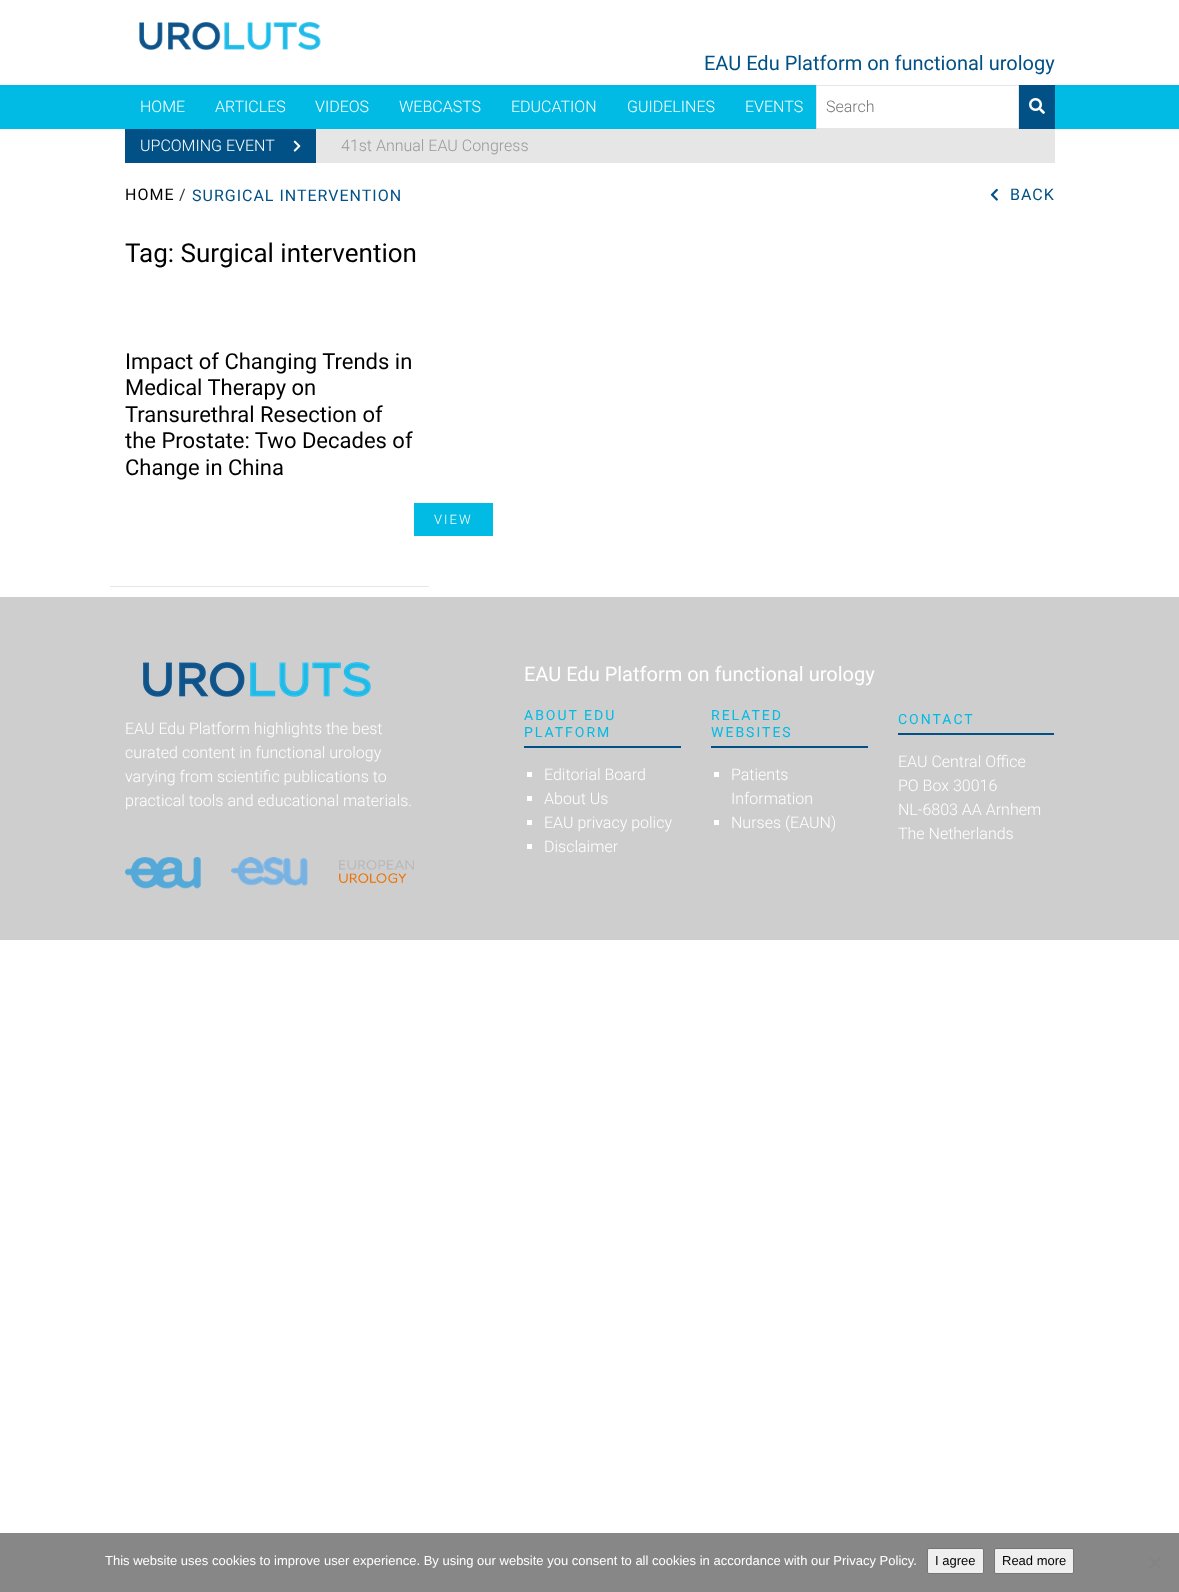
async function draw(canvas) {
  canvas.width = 1179
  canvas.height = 1592
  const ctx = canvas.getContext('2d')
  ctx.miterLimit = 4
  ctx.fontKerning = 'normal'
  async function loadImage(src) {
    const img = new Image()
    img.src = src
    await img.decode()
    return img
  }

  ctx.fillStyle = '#fff'
  ctx.fillRect(0, 0, 1179, 1592)
  ctx.drawImage(await loadImage('image0.png'), 139, 22, 182, 28)
  ctx.font = '20px Roboto'
  ctx.fillStyle = '#015186'
  ctx.fillText('EAU Edu Platform on functional urology', 704, 70)
  ctx.fillStyle = '#02bbe4'
  ctx.fillRect(0, 85, 1179, 44)
  ctx.font = '300 16px Roboto'
  ctx.fillStyle = '#fff'
  ctx.fillText('HOME', 140, 112)
  ctx.fillText('ARTICLES', 215, 112)
  ctx.fillText('VIDEOS', 315, 112)
  ctx.fillText('WEBCASTS', 399, 112)
  ctx.fillText('EDUCATION', 511, 112)
  ctx.fillText('GUIDELINES', 627, 112)
  ctx.fillText('EVENTS', 745, 112)
  ctx.beginPath()
  ctx.rect(816.5, 85.5, 202, 43)
  ctx.fill()
  ctx.strokeStyle = '#e6e6e6'
  ctx.stroke()
  ctx.fillStyle = '#757575'
  ctx.fillText('Search', 826, 112)
  ctx.fillStyle = '#015186'
  ctx.fillRect(1019, 85, 36, 44)
  ctx.drawImage(await loadImage('image1.png'), 1029, 98, 16, 16)
  ctx.fillStyle = '#e6e6e6'
  ctx.fillRect(316, 129, 739, 34)
  ctx.fillStyle = '#015186'
  ctx.fillRect(125, 129, 191, 34)
  ctx.fillStyle = '#fff'
  ctx.fillText('UPCOMING EVENT', 140, 151)
  ctx.drawImage(await loadImage('image2.png'), 293, 140, 8, 12)
  ctx.fillStyle = '#999'
  ctx.fillText('41st Annual EAU Congress', 341, 151)
  ctx.letterSpacing = '1px'
  ctx.font = '16px Roboto'
  ctx.fillStyle = '#000'
  ctx.fillText('HOME', 125, 200)
  ctx.fillStyle = '#333'
  ctx.fillText('/', 179, 200)
  ctx.fillStyle = '#015186'
  ctx.fillText('SURGICAL INTERVENTION', 192, 201)
  ctx.drawImage(await loadImage('image3.png'), 990, 188, 8, 13)
  ctx.fillText('BACK', 1010, 200)
  ctx.letterSpacing = '0px'
  ctx.font = '26px Roboto'
  ctx.fillStyle = '#000'
  ctx.fillText('Tag: Surgical intervention', 125, 262)
  ctx.fillStyle = '#e6e6e6'
  ctx.fillRect(110, 586, 319, 1)
  ctx.font = '22px Roboto'
  ctx.fillStyle = '#000'
  ctx.fillText('Impact of Changing Trends in', 125, 369)
  ctx.fillText('Medical Therapy on', 125, 395)
  ctx.fillText('Transurethral Resection of', 125, 422)
  ctx.fillText('the Prostate: Two Decades of', 125, 448)
  ctx.fillText('Change in China', 125, 475)
  ctx.fillStyle = '#02bbe4'
  ctx.fillRect(414, 503, 79, 33)
  ctx.letterSpacing = '2px'
  ctx.font = '300 13px Roboto'
  ctx.fillStyle = '#fff'
  ctx.fillText('VIEW', 434, 524)
  ctx.fillStyle = '#cecece'
  ctx.fillRect(0, 597, 1179, 343)
  ctx.drawImage(await loadImage('image4.png'), 143, 662, 228, 35)
  ctx.letterSpacing = '0px'
  ctx.font = '20px Roboto'
  ctx.fillStyle = '#fff'
  ctx.fillText('EAU Edu Platform on functional urology', 524, 681)
  ctx.font = '300 16px Roboto'
  ctx.fillText('EAU Edu Platform highlights the best', 125, 734)
  ctx.fillText('curated content in functional urology', 125, 758)
  ctx.fillText('varying from scientific publications to', 125, 782)
  ctx.fillText('practical tools and educational materials.', 125, 806)
  ctx.drawImage(await loadImage('image5.png'), 125, 857, 76, 32)
  ctx.drawImage(await loadImage('image6.png'), 231, 857, 77, 29)
  ctx.drawImage(await loadImage('image7.png'), 339, 860, 75, 24)
  ctx.fillStyle = '#015186'
  ctx.fillRect(524, 746, 157, 2)
  ctx.letterSpacing = '2px'
  ctx.font = '14px Roboto'
  ctx.fillStyle = '#02bbe4'
  ctx.fillText('ABOUT EDU', 524, 720)
  ctx.fillText('PLATFORM', 524, 737)
  ctx.fillStyle = '#fff'
  ctx.fillRect(527, 772, 5, 5)
  ctx.letterSpacing = '0px'
  ctx.font = '300 16px Roboto'
  ctx.fillText('Editorial Board', 544, 780)
  ctx.fillRect(527, 796, 5, 5)
  ctx.fillText('About Us', 544, 804)
  ctx.fillRect(527, 820, 5, 5)
  ctx.fillText('EAU privacy policy', 544, 828)
  ctx.fillRect(527, 844, 5, 5)
  ctx.fillText('Disclaimer', 544, 852)
  ctx.fillStyle = '#015186'
  ctx.fillRect(711, 746, 157, 2)
  ctx.letterSpacing = '2px'
  ctx.font = '14px Roboto'
  ctx.fillStyle = '#02bbe4'
  ctx.fillText('RELATED', 711, 720)
  ctx.fillText('WEBSITES', 711, 737)
  ctx.fillStyle = '#fff'
  ctx.fillRect(714, 772, 5, 5)
  ctx.letterSpacing = '0px'
  ctx.font = '300 16px Roboto'
  ctx.fillText('Patients', 731, 780)
  ctx.fillText('Information', 731, 804)
  ctx.fillRect(714, 820, 5, 5)
  ctx.fillText('Nurses (EAUN)', 731, 828)
  ctx.fillStyle = '#015186'
  ctx.fillRect(898, 733, 156, 2)
  ctx.letterSpacing = '2px'
  ctx.font = '14px Roboto'
  ctx.fillStyle = '#02bbe4'
  ctx.fillText('CONTACT', 898, 724)
  ctx.letterSpacing = '0px'
  ctx.font = '300 16px Roboto'
  ctx.fillStyle = '#fff'
  ctx.fillText('EAU Central Office', 898, 767)
  ctx.fillText('PO Box 30016', 898, 791)
  ctx.fillText('NL-6803 AA Arnhem', 898, 815)
  ctx.fillText('The Netherlands', 898, 839)
  ctx.fillStyle = '#878787'
  ctx.fillRect(0, 1533, 1179, 59)
  ctx.font = '13px Liberation Sans'
  ctx.fillStyle = '#fff'
  ctx.fillText('This website uses cookies to improve user experience. By using our website you consent to all cookies in accordance with our Privacy Policy.', 105, 1565)
  ctx.fillStyle = '#efefef'
  ctx.beginPath()
  ctx.roundRect(927.5, 1548.5, 56, 25, 1.5)
  ctx.fill()
  ctx.strokeStyle = '#767676'
  ctx.stroke()
  ctx.fillStyle = '#000'
  ctx.fillText('I agree', 935, 1565)
  ctx.fillStyle = '#efefef'
  ctx.beginPath()
  ctx.roundRect(994.5, 1548.5, 79, 25, 1.5)
  ctx.fill()
  ctx.stroke()
  ctx.fillStyle = '#000'
  ctx.fillText('Read more', 1002, 1565)
  ctx.fillStyle = '#848484'
  ctx.beginPath()
  ctx.moveTo(1159.5, 1557)
  ctx.lineTo(1161, 1558.5)
  ctx.lineTo(1150.5, 1569)
  ctx.lineTo(1149, 1567.5)
  ctx.closePath()
  ctx.fill()
  ctx.beginPath()
  ctx.moveTo(1149, 1558.5)
  ctx.lineTo(1150.5, 1557)
  ctx.lineTo(1161, 1567.5)
  ctx.lineTo(1159.5, 1569)
  ctx.closePath()
  ctx.fill()
}

draw(document.querySelector('canvas'))
